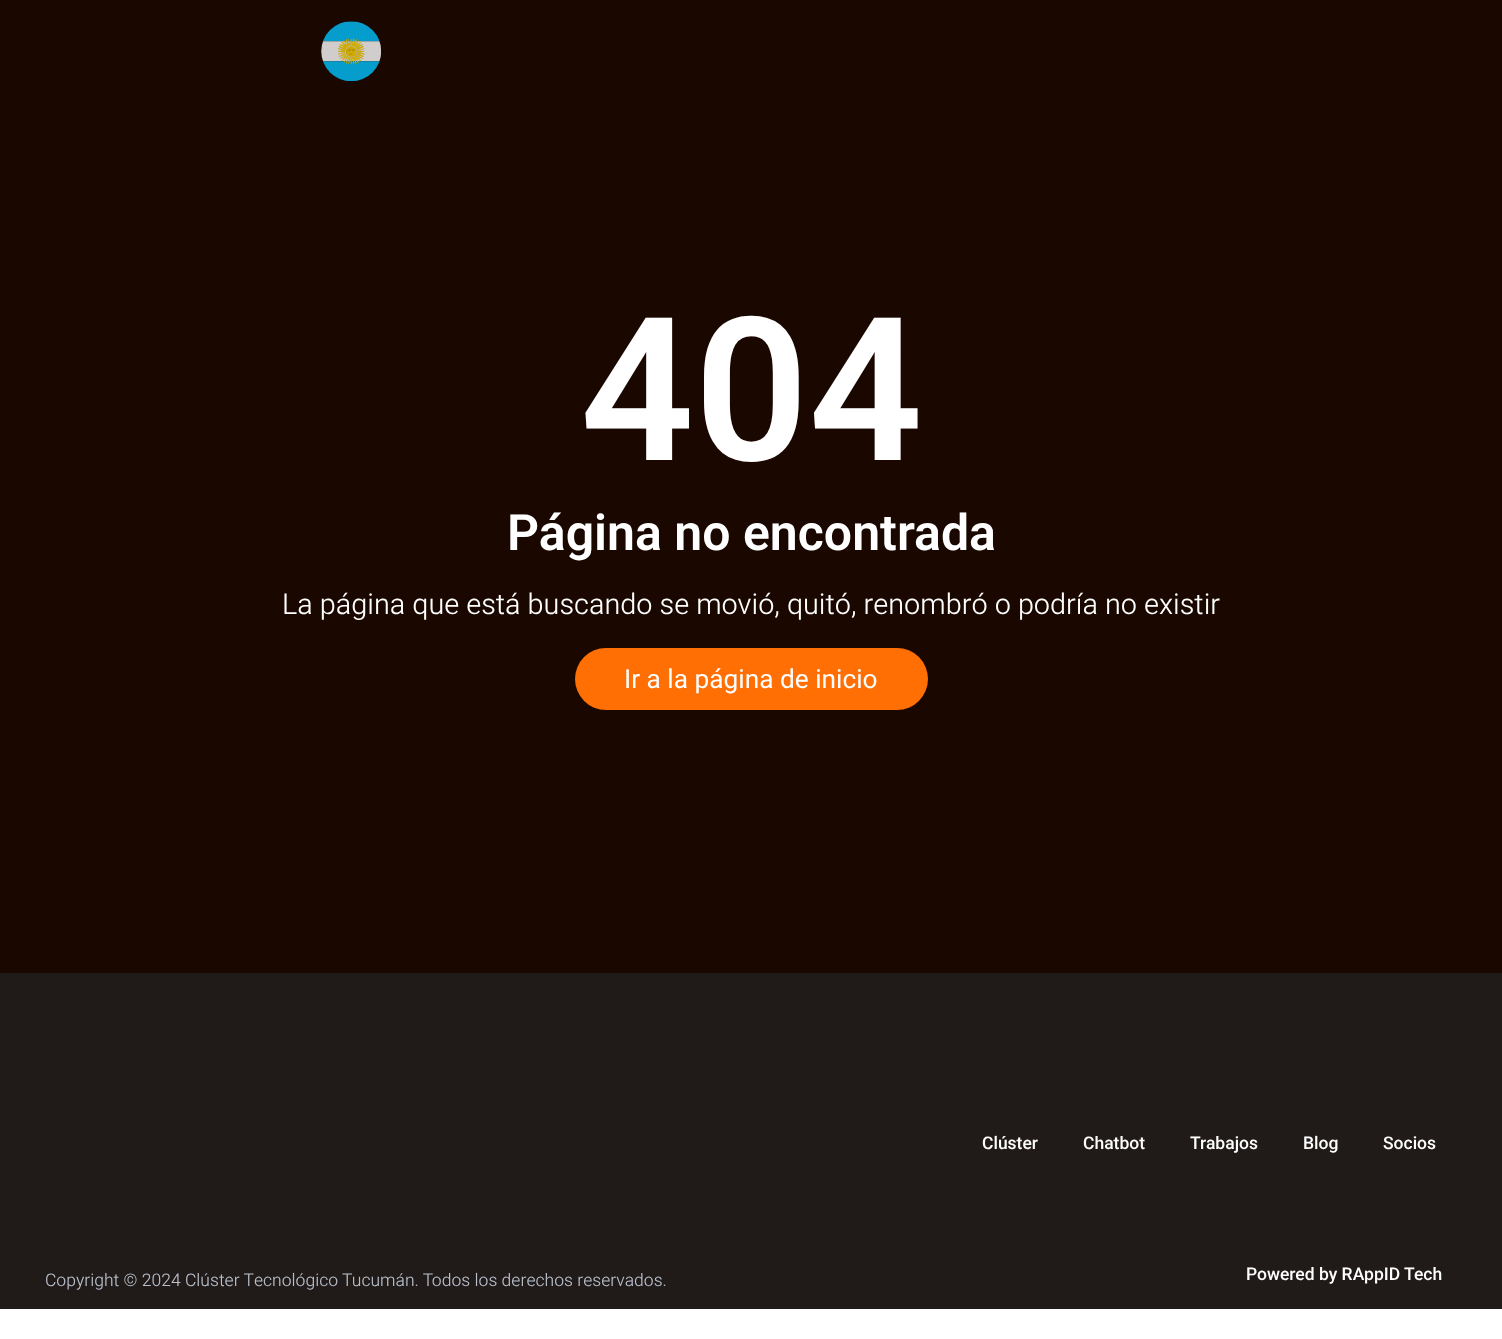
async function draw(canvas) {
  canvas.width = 1502
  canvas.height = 1339
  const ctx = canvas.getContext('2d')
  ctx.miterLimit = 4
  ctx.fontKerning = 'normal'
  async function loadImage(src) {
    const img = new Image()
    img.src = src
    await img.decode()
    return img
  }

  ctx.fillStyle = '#fff'
  ctx.fillRect(0, 0, 1502, 1339)
  ctx.fillStyle = '#1a0800'
  ctx.fillRect(0, 0, 1502, 973)
  ctx.drawImage(await loadImage('image0.png'), 321, 21, 60, 60)
  ctx.font = '600 200px Roboto'
  ctx.fillStyle = '#fff'
  ctx.fillText('404', 580, 460)
  ctx.font = '600 50px Roboto'
  ctx.fillText('Página no encontrada', 507, 550)
  ctx.font = '300 28.75px Heebo'
  ctx.fillText('La página que está buscando se movió, quitó, renombró o podría no existir', 282, 614)
  ctx.fillStyle = '#ff6f03'
  ctx.beginPath()
  ctx.roundRect(575, 648, 353, 62, 31)
  ctx.fill()
  ctx.font = '26.25px Roboto'
  ctx.fillStyle = '#fff'
  ctx.fillText('Ir a la página de inicio', 624, 688)
  ctx.fillStyle = '#201a18'
  ctx.fillRect(0, 973, 1502, 336)
  ctx.font = '500 17.5px Roboto'
  ctx.fillStyle = '#fff'
  ctx.fillText('Clúster', 982, 1149)
  ctx.fillText('Chatbot', 1083, 1149)
  ctx.fillText('Trabajos', 1190, 1149)
  ctx.fillText('Blog', 1303, 1149)
  ctx.fillText('Socios', 1383, 1149)
  ctx.font = '300 17.5px Heebo'
  ctx.fillStyle = '#b7bfcb'
  ctx.fillText('Copyright © 2024 Clúster Tecnológico Tucumán. Todos los derechos reservados.', 45, 1286)
  ctx.font = '500 17.5px Roboto'
  ctx.fillStyle = '#fff'
  ctx.fillText('Powered by RAppID Tech', 1246, 1280)
}

draw(document.querySelector('canvas'))
